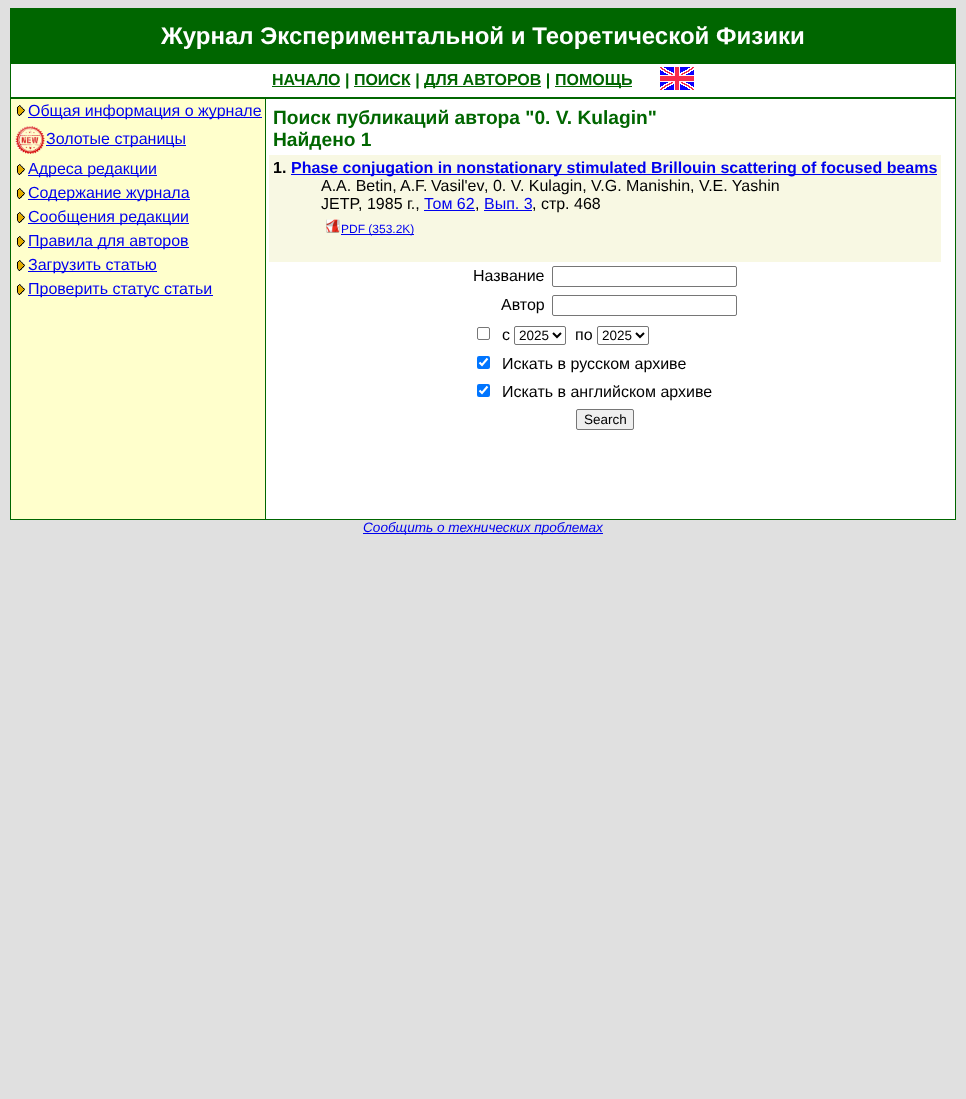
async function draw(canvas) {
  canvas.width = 966
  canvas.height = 1099
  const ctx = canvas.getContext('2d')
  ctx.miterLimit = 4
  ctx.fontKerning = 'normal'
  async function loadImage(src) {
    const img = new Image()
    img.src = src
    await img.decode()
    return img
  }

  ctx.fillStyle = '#e0e0e0'
  ctx.fillRect(0, 0, 966, 1099)
  ctx.fillStyle = '#060'
  ctx.fillRect(10, 8, 946, 512)
  ctx.fillStyle = '#fff'
  ctx.fillRect(11, 64, 944, 455)
  ctx.font = 'bold 24px Liberation Sans'
  ctx.fillText('Журнал Экспериментальной и Теоретической Физики', 161, 44)
  ctx.fillStyle = '#060'
  ctx.fillRect(272, 86, 68, 1)
  ctx.font = 'bold 16px Liberation Sans'
  ctx.fillText('НАЧАЛО | ПОИСК |', 272, 85)
  ctx.fillRect(424, 86, 117, 1)
  ctx.fillText('ДЛЯ АВТОРОВ |', 424, 85)
  ctx.fillRect(555, 86, 77, 1)
  ctx.fillText('ПОМОЩЬ', 555, 85)
  ctx.fillRect(354, 86, 56, 1)
  ctx.drawImage(await loadImage('image0.png'), 660, 67, 34, 23)
  ctx.fillRect(11, 97, 944, 2)
  ctx.fillStyle = '#ffc'
  ctx.fillRect(11, 99, 254, 420)
  ctx.drawImage(await loadImage('image1.png'), 16, 105, 9, 11)
  ctx.fillStyle = '#00e'
  ctx.fillRect(28, 117, 234, 1)
  ctx.font = '16px Liberation Sans'
  ctx.fillText('Общая информация о журнале', 28, 116)
  ctx.drawImage(await loadImage('image2.png'), 14, 126, 31, 28)
  ctx.fillRect(46, 145, 140, 1)
  ctx.fillText('Золотые страницы', 46, 144)
  ctx.drawImage(await loadImage('image1.png'), 16, 164, 9, 11)
  ctx.fillRect(28, 175, 129, 1)
  ctx.fillText('Адреса редакции', 28, 174)
  ctx.drawImage(await loadImage('image1.png'), 16, 188, 9, 11)
  ctx.fillRect(28, 199, 162, 1)
  ctx.fillText('Содержание журнала', 28, 198)
  ctx.drawImage(await loadImage('image1.png'), 16, 212, 9, 11)
  ctx.fillRect(28, 223, 161, 1)
  ctx.fillText('Сообщения редакции', 28, 222)
  ctx.drawImage(await loadImage('image1.png'), 16, 236, 9, 11)
  ctx.fillRect(28, 247, 161, 1)
  ctx.fillText('Правила для авторов', 28, 246)
  ctx.drawImage(await loadImage('image1.png'), 16, 260, 9, 11)
  ctx.fillRect(28, 271, 129, 1)
  ctx.fillText('Загрузить статью', 28, 270)
  ctx.drawImage(await loadImage('image1.png'), 16, 284, 9, 11)
  ctx.fillRect(28, 295, 185, 1)
  ctx.fillText('Проверить статус статьи', 28, 294)
  ctx.fillStyle = '#060'
  ctx.fillRect(265, 99, 1, 420)
  ctx.font = 'bold 19.2px Liberation Sans'
  ctx.fillText('Поиск публикаций автора "0. V. Kulagin"', 273, 124)
  ctx.fillText('Найдено 1', 273, 146)
  ctx.fillStyle = '#f8f8e3'
  ctx.fillRect(269, 155, 672, 107)
  ctx.font = 'bold 16px Liberation Sans'
  ctx.fillStyle = '#000'
  ctx.fillText('1.', 273, 173)
  ctx.fillStyle = '#00e'
  ctx.fillRect(291, 174, 646, 1)
  ctx.fillText('Phase conjugation in nonstationary stimulated Brillouin scattering of focused beams', 291, 173)
  ctx.font = '16px Liberation Sans'
  ctx.fillStyle = '#000'
  ctx.fillText('A.A. Betin,', 321, 191)
  ctx.wordSpacing = '-1px'
  ctx.fillText('A.F. Vasil\'ev', 400, 191)
  ctx.wordSpacing = '0px'
  ctx.fillText(', 0. V. Kulagin, V.G. Manishin, V.E. Yashin', 484, 191)
  ctx.fillText('JETP, 1985 г.,', 321, 209)
  ctx.fillStyle = '#00e'
  ctx.fillText('Том 62', 424, 209)
  ctx.fillRect(424, 210, 51, 1)
  ctx.fillStyle = '#000'
  ctx.fillText(',', 475, 209)
  ctx.fillStyle = '#00e'
  ctx.fillText('Вып. 3', 484, 209)
  ctx.fillRect(484, 210, 48, 1)
  ctx.fillStyle = '#000'
  ctx.fillText(', стр. 468', 532, 209)
  ctx.drawImage(await loadImage('image3.png'), 326, 219, 14, 14)
  ctx.fillStyle = '#00e'
  ctx.fillRect(341, 234, 73, 1)
  ctx.font = '12px Liberation Sans'
  ctx.fillText('PDF (353.2K)', 341, 233)
  ctx.font = '16px Liberation Sans'
  ctx.fillStyle = '#000'
  ctx.fillText('Название', 473, 281)
  ctx.beginPath()
  ctx.roundRect(552.5, 266.5, 184, 20, 1.5)
  ctx.strokeStyle = '#767676'
  ctx.stroke()
  ctx.fillText('Автор', 501, 310)
  ctx.beginPath()
  ctx.roundRect(552.5, 295.5, 184, 20, 1.5)
  ctx.stroke()
  ctx.beginPath()
  ctx.roundRect(477.5, 327.5, 12, 12, 1.5)
  ctx.stroke()
  ctx.fillText('с', 502, 340)
  ctx.beginPath()
  ctx.roundRect(514.5, 326.5, 51, 18, 1.5)
  ctx.stroke()
  ctx.beginPath()
  ctx.moveTo(553, 333)
  ctx.lineTo(557, 337)
  ctx.lineTo(561, 333)
  ctx.strokeStyle = '#000'
  ctx.lineWidth = 2
  ctx.stroke()
  ctx.font = '13.5px Liberation Sans'
  ctx.fillText('2025', 519, 340)
  ctx.font = '16px Liberation Sans'
  ctx.fillText('по', 575, 340)
  ctx.beginPath()
  ctx.roundRect(597.5, 326.5, 51, 18, 1.5)
  ctx.strokeStyle = '#767676'
  ctx.lineWidth = 1
  ctx.stroke()
  ctx.beginPath()
  ctx.moveTo(636, 333)
  ctx.lineTo(640, 337)
  ctx.lineTo(644, 333)
  ctx.strokeStyle = '#000'
  ctx.lineWidth = 2
  ctx.stroke()
  ctx.font = '13.5px Liberation Sans'
  ctx.fillText('2025', 602, 340)
  ctx.fillStyle = '#0075ff'
  ctx.beginPath()
  ctx.roundRect(477, 356, 13, 13, 2)
  ctx.fill()
  ctx.beginPath()
  ctx.moveTo(479.5, 362.5)
  ctx.lineTo(482, 365)
  ctx.lineTo(487.5, 358.5)
  ctx.strokeStyle = '#fff'
  ctx.lineWidth = 2.1
  ctx.stroke()
  ctx.font = '16px Liberation Sans'
  ctx.fillStyle = '#000'
  ctx.fillText('Искать в русском архиве', 502, 369)
  ctx.fillStyle = '#0075ff'
  ctx.beginPath()
  ctx.roundRect(477, 384, 13, 13, 2)
  ctx.fill()
  ctx.beginPath()
  ctx.moveTo(479.5, 390.5)
  ctx.lineTo(482, 393)
  ctx.lineTo(487.5, 386.5)
  ctx.stroke()
  ctx.fillStyle = '#000'
  ctx.fillText('Искать в английском архиве', 502, 397)
  ctx.fillStyle = '#efefef'
  ctx.beginPath()
  ctx.roundRect(576.5, 409.5, 57, 20, 1.5)
  ctx.fill()
  ctx.strokeStyle = '#767676'
  ctx.lineWidth = 1
  ctx.stroke()
  ctx.font = '13.5px Liberation Sans'
  ctx.fillStyle = '#000'
  ctx.fillText('Search', 584, 424)
  ctx.fillStyle = '#00e'
  ctx.fillRect(363, 533, 240, 1)
  ctx.font = 'italic 13.6px Liberation Sans'
  ctx.fillText('Сообщить о технических проблемах', 363, 532)
}

draw(document.querySelector('canvas'))
